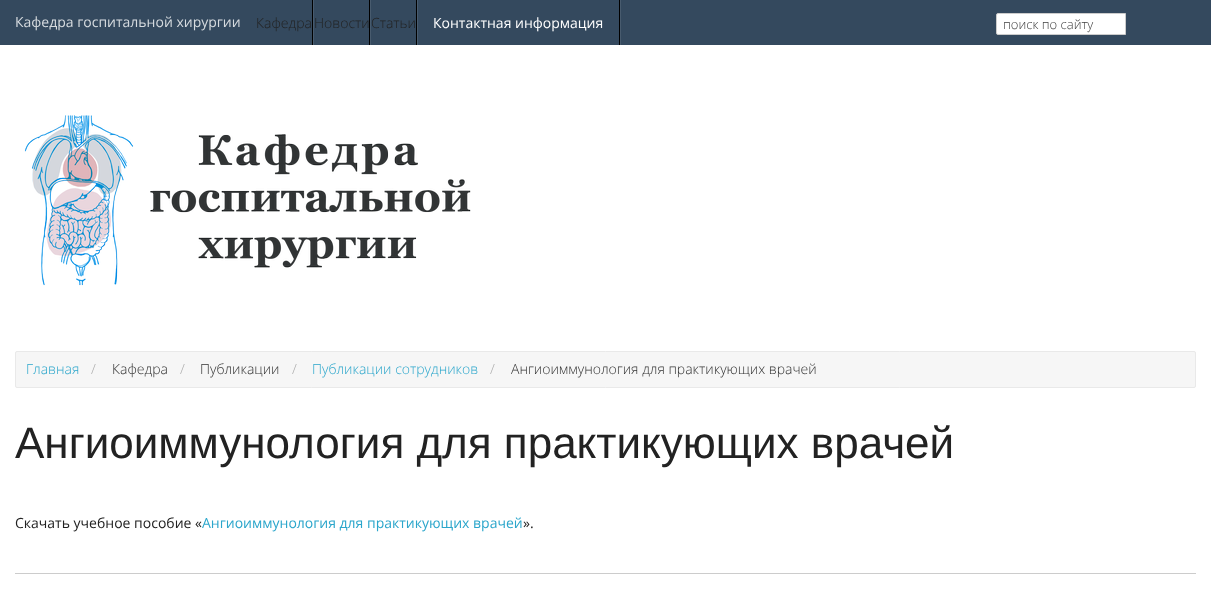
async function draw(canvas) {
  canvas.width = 1211
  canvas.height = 612
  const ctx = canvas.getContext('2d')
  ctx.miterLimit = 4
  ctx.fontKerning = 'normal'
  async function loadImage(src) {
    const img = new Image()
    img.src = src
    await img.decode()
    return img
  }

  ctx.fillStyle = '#fff'
  ctx.fillRect(0, 0, 1211, 612)
  ctx.fillStyle = '#34495e'
  ctx.fillRect(0, 0, 1211, 45)
  ctx.font = '14px Open Sans'
  ctx.fillStyle = '#d6dbdf'
  ctx.fillText('Кафедра госпитальной хирургии', 15, 27)
  ctx.font = '300 14px Open Sans'
  ctx.fillStyle = '#222'
  ctx.fillText('Кафедра', 256, 28)
  ctx.fillStyle = '#485b6e'
  ctx.fillRect(313, 0, 1, 45)
  ctx.fillStyle = '#000'
  ctx.fillRect(312, 0, 1, 45)
  ctx.fillStyle = '#222'
  ctx.fillText('Новости', 314, 28)
  ctx.fillStyle = '#485b6e'
  ctx.fillRect(370, 0, 1, 45)
  ctx.fillStyle = '#000'
  ctx.fillRect(369, 0, 1, 45)
  ctx.fillStyle = '#222'
  ctx.fillText('Статьи', 371, 28)
  ctx.fillStyle = '#485b6e'
  ctx.fillRect(417, 0, 1, 45)
  ctx.fillStyle = '#000'
  ctx.fillRect(416, 0, 1, 45)
  ctx.font = '14px Open Sans'
  ctx.fillStyle = '#fff'
  ctx.fillText('Контактная информация', 433, 28)
  ctx.fillStyle = '#485b6e'
  ctx.fillRect(620, 0, 1, 45)
  ctx.fillStyle = '#000'
  ctx.fillRect(619, 0, 1, 45)
  ctx.fillStyle = '#fff'
  ctx.beginPath()
  ctx.roundRect(996.5, 13.5, 129, 21, [1.5, 0, 0, 1.5])
  ctx.fill()
  ctx.strokeStyle = '#ccc'
  ctx.stroke()
  ctx.font = '300 13px Open Sans'
  ctx.fillStyle = '#404040'
  ctx.fillText('поиск по сайту', 1003, 29)
  ctx.drawImage(await loadImage('image0.png'), 24, 115, 447, 171)
  ctx.fillStyle = '#f6f6f6'
  ctx.beginPath()
  ctx.roundRect(15.5, 351.5, 1180, 36, 1.5)
  ctx.fill()
  ctx.strokeStyle = '#e9e9e9'
  ctx.stroke()
  ctx.font = '300 14px Open Sans'
  ctx.fillStyle = '#2ba6cb'
  ctx.fillText('Главная', 26, 374)
  ctx.fillStyle = '#aaa'
  ctx.fillText('/', 91, 374)
  ctx.fillStyle = '#333'
  ctx.fillText('Кафедра', 112, 374)
  ctx.fillStyle = '#aaa'
  ctx.fillText('/', 180, 374)
  ctx.fillStyle = '#333'
  ctx.fillText('Публикации', 200, 374)
  ctx.fillStyle = '#aaa'
  ctx.fillText('/', 292, 374)
  ctx.fillStyle = '#2ba6cb'
  ctx.fillText('Публикации сотрудников', 312, 374)
  ctx.fillStyle = '#aaa'
  ctx.fillText('/', 490, 374)
  ctx.fillStyle = '#333'
  ctx.fillText('Ангиоиммунология для практикующих врачей', 511, 374)
  ctx.font = '44px Liberation Sans'
  ctx.fillStyle = '#222'
  ctx.fillText('Ангиоиммунология для практикующих врачей', 15, 458)
  ctx.font = '14px Open Sans'
  ctx.fillText('Скачать учебное пособие «', 15, 528)
  ctx.fillStyle = '#2ba6cb'
  ctx.fillText('Ангиоиммунология для практикующих врачей', 202, 528)
  ctx.fillStyle = '#222'
  ctx.fillText('».', 523, 528)
  ctx.fillStyle = '#ccc'
  ctx.fillRect(15, 573, 1181, 1)
}

draw(document.querySelector('canvas'))
